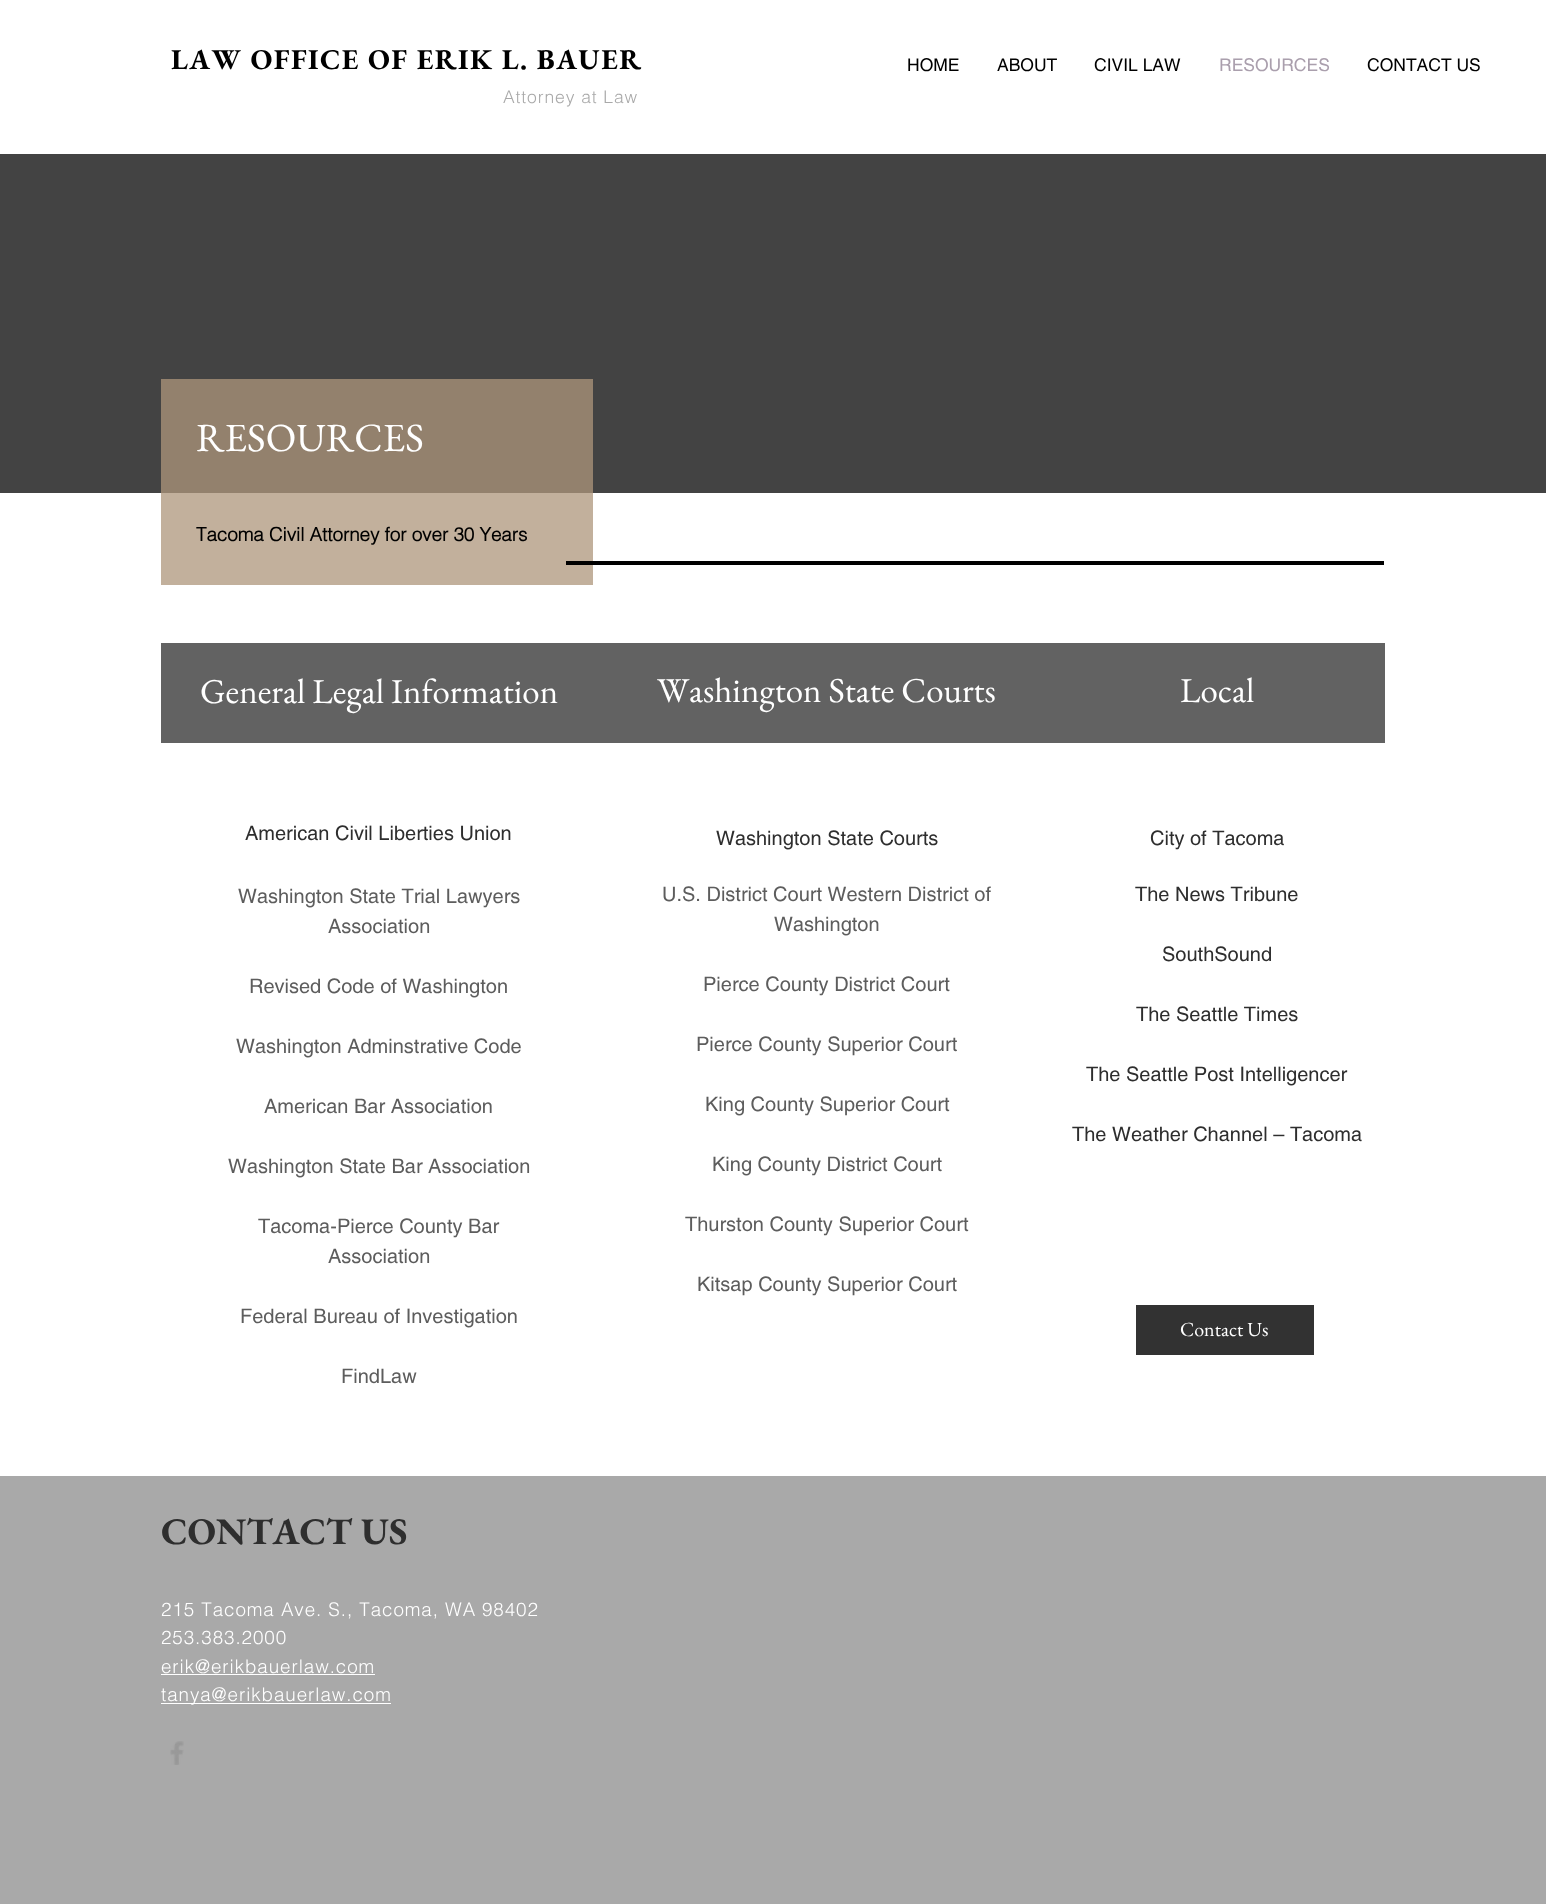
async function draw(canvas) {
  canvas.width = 1546
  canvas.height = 1904
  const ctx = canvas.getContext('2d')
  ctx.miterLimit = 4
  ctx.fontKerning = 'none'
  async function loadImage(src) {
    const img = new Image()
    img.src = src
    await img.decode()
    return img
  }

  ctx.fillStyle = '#fff'
  ctx.fillRect(0, 0, 1546, 1904)
  ctx.fillStyle = '#c2b09c'
  ctx.fillRect(161, 493, 432, 92)
  ctx.letterSpacing = '1.45px'
  ctx.font = 'bold 28.75px EB Garamond'
  ctx.fillStyle = '#000'
  ctx.fillText('LAW OFFICE OF ERIK L. BAUER', 171, 69)
  ctx.letterSpacing = '0px'
  ctx.font = '17.5px helvetica'
  ctx.fillText('HOME', 907, 71)
  ctx.fillText('ABOUT', 997, 71)
  ctx.fillText('CIVIL LAW', 1094, 71)
  ctx.fillStyle = '#aa9fad'
  ctx.fillText('RESOURCES', 1219, 71)
  ctx.fillStyle = '#000'
  ctx.fillText('CONTACT US', 1367, 71)
  ctx.letterSpacing = '0.9px'
  ctx.font = '300 17.5px helvetica'
  ctx.fillStyle = '#a9a9a9'
  ctx.fillText('Attorney at Law', 503, 103)
  ctx.fillStyle = '#434343'
  ctx.fillRect(0, 154, 1546, 339)
  ctx.fillStyle = '#93816d'
  ctx.fillRect(161, 379, 432, 114)
  ctx.letterSpacing = '0px'
  ctx.font = '40px EB Garamond'
  ctx.fillStyle = '#fff'
  ctx.fillText('RESOURCES', 196, 451)
  ctx.font = 'bold 18.75px helvetica'
  ctx.fillStyle = '#000'
  ctx.fillText('Tacoma Civil Attorney for over 30 Years', 196, 541)
  ctx.fillRect(566, 561, 818, 4)
  ctx.fillStyle = '#626262'
  ctx.fillRect(161, 643, 1224, 100)
  ctx.font = '35px EB Garamond'
  ctx.fillStyle = '#fff'
  ctx.fillText('General Legal Information', 200, 703)
  ctx.fillText('Local', 1180, 702)
  ctx.fillText('Washington State Courts', 657, 702)
  ctx.font = '20px helvetica'
  ctx.fillStyle = '#2e2e2e'
  ctx.fillText('American Civil Liberties Union', 245, 840)
  ctx.fillStyle = '#5d5d5d'
  ctx.fillText('Washington State Trial Lawyers', 238, 903)
  ctx.fillText('Association', 328, 933)
  ctx.fillText('Revised Code of Washington', 249, 993)
  ctx.fillText('Washington Adminstrative Code', 236, 1053)
  ctx.fillText('American Bar Association', 264, 1113)
  ctx.fillText('Washington State Bar Association', 228, 1173)
  ctx.fillText('Tacoma-Pierce County Bar', 258, 1233)
  ctx.fillText('Association', 328, 1263)
  ctx.fillText('Federal Bureau of Investigation', 240, 1323)
  ctx.fillText('FindLaw', 341, 1383)
  ctx.fillStyle = '#2e2e2e'
  ctx.fillText('Washington State Courts', 716, 845)
  ctx.fillStyle = '#5d5d5d'
  ctx.fillText('U.S. District Court Western District of', 662, 901)
  ctx.fillText('Washington', 774, 931)
  ctx.fillText('Pierce County District Court', 703, 991)
  ctx.fillText('Pierce County Superior Court', 696, 1051)
  ctx.fillText('King County Superior Court', 705, 1111)
  ctx.fillText('King County District Court', 712, 1171)
  ctx.fillText('Thurston County Superior Court', 685, 1231)
  ctx.fillText('Kitsap County Superior Court', 697, 1291)
  ctx.fillStyle = '#2e2e2e'
  ctx.fillText('City of Tacoma', 1150, 845)
  ctx.fillText('The News Tribune', 1135, 901)
  ctx.fillText('SouthSound', 1162, 961)
  ctx.fillText('The Seattle Times', 1136, 1021)
  ctx.fillText('The Seattle Post Intelligencer', 1086, 1081)
  ctx.fillText('The Weather Channel – Tacoma', 1072, 1141)
  ctx.fillStyle = '#323232'
  ctx.fillRect(1136, 1305, 178, 50)
  ctx.font = '20px EB Garamond'
  ctx.fillStyle = '#fff'
  ctx.fillText('Contact Us', 1180, 1336)
  ctx.fillStyle = '#a9a9a9'
  ctx.fillRect(0, 1476, 1546, 428)
  ctx.font = 'bold 37.5px EB Garamond'
  ctx.fillStyle = '#2e2e2e'
  ctx.fillText('CONTACT US', 161, 1544)
  ctx.letterSpacing = '0.95px'
  ctx.font = '300 18.75px helvetica'
  ctx.fillStyle = '#fff'
  ctx.fillText('215 Tacoma Ave. S., Tacoma, WA', 161, 1616)
  ctx.fillText('98402', 482, 1616)
  ctx.fillText('253.383.2000', 161, 1644)
  ctx.fillText('erik@erikbauerlaw.com', 161, 1673)
  ctx.fillRect(161, 1674, 214, 1)
  ctx.fillRect(161, 1703, 230, 1)
  ctx.fillText('tanya@erikbauerlaw.com', 161, 1701)
  ctx.drawImage(await loadImage('image0.png'), 170, 1741, 14, 24)
}

draw(document.querySelector('canvas'))
